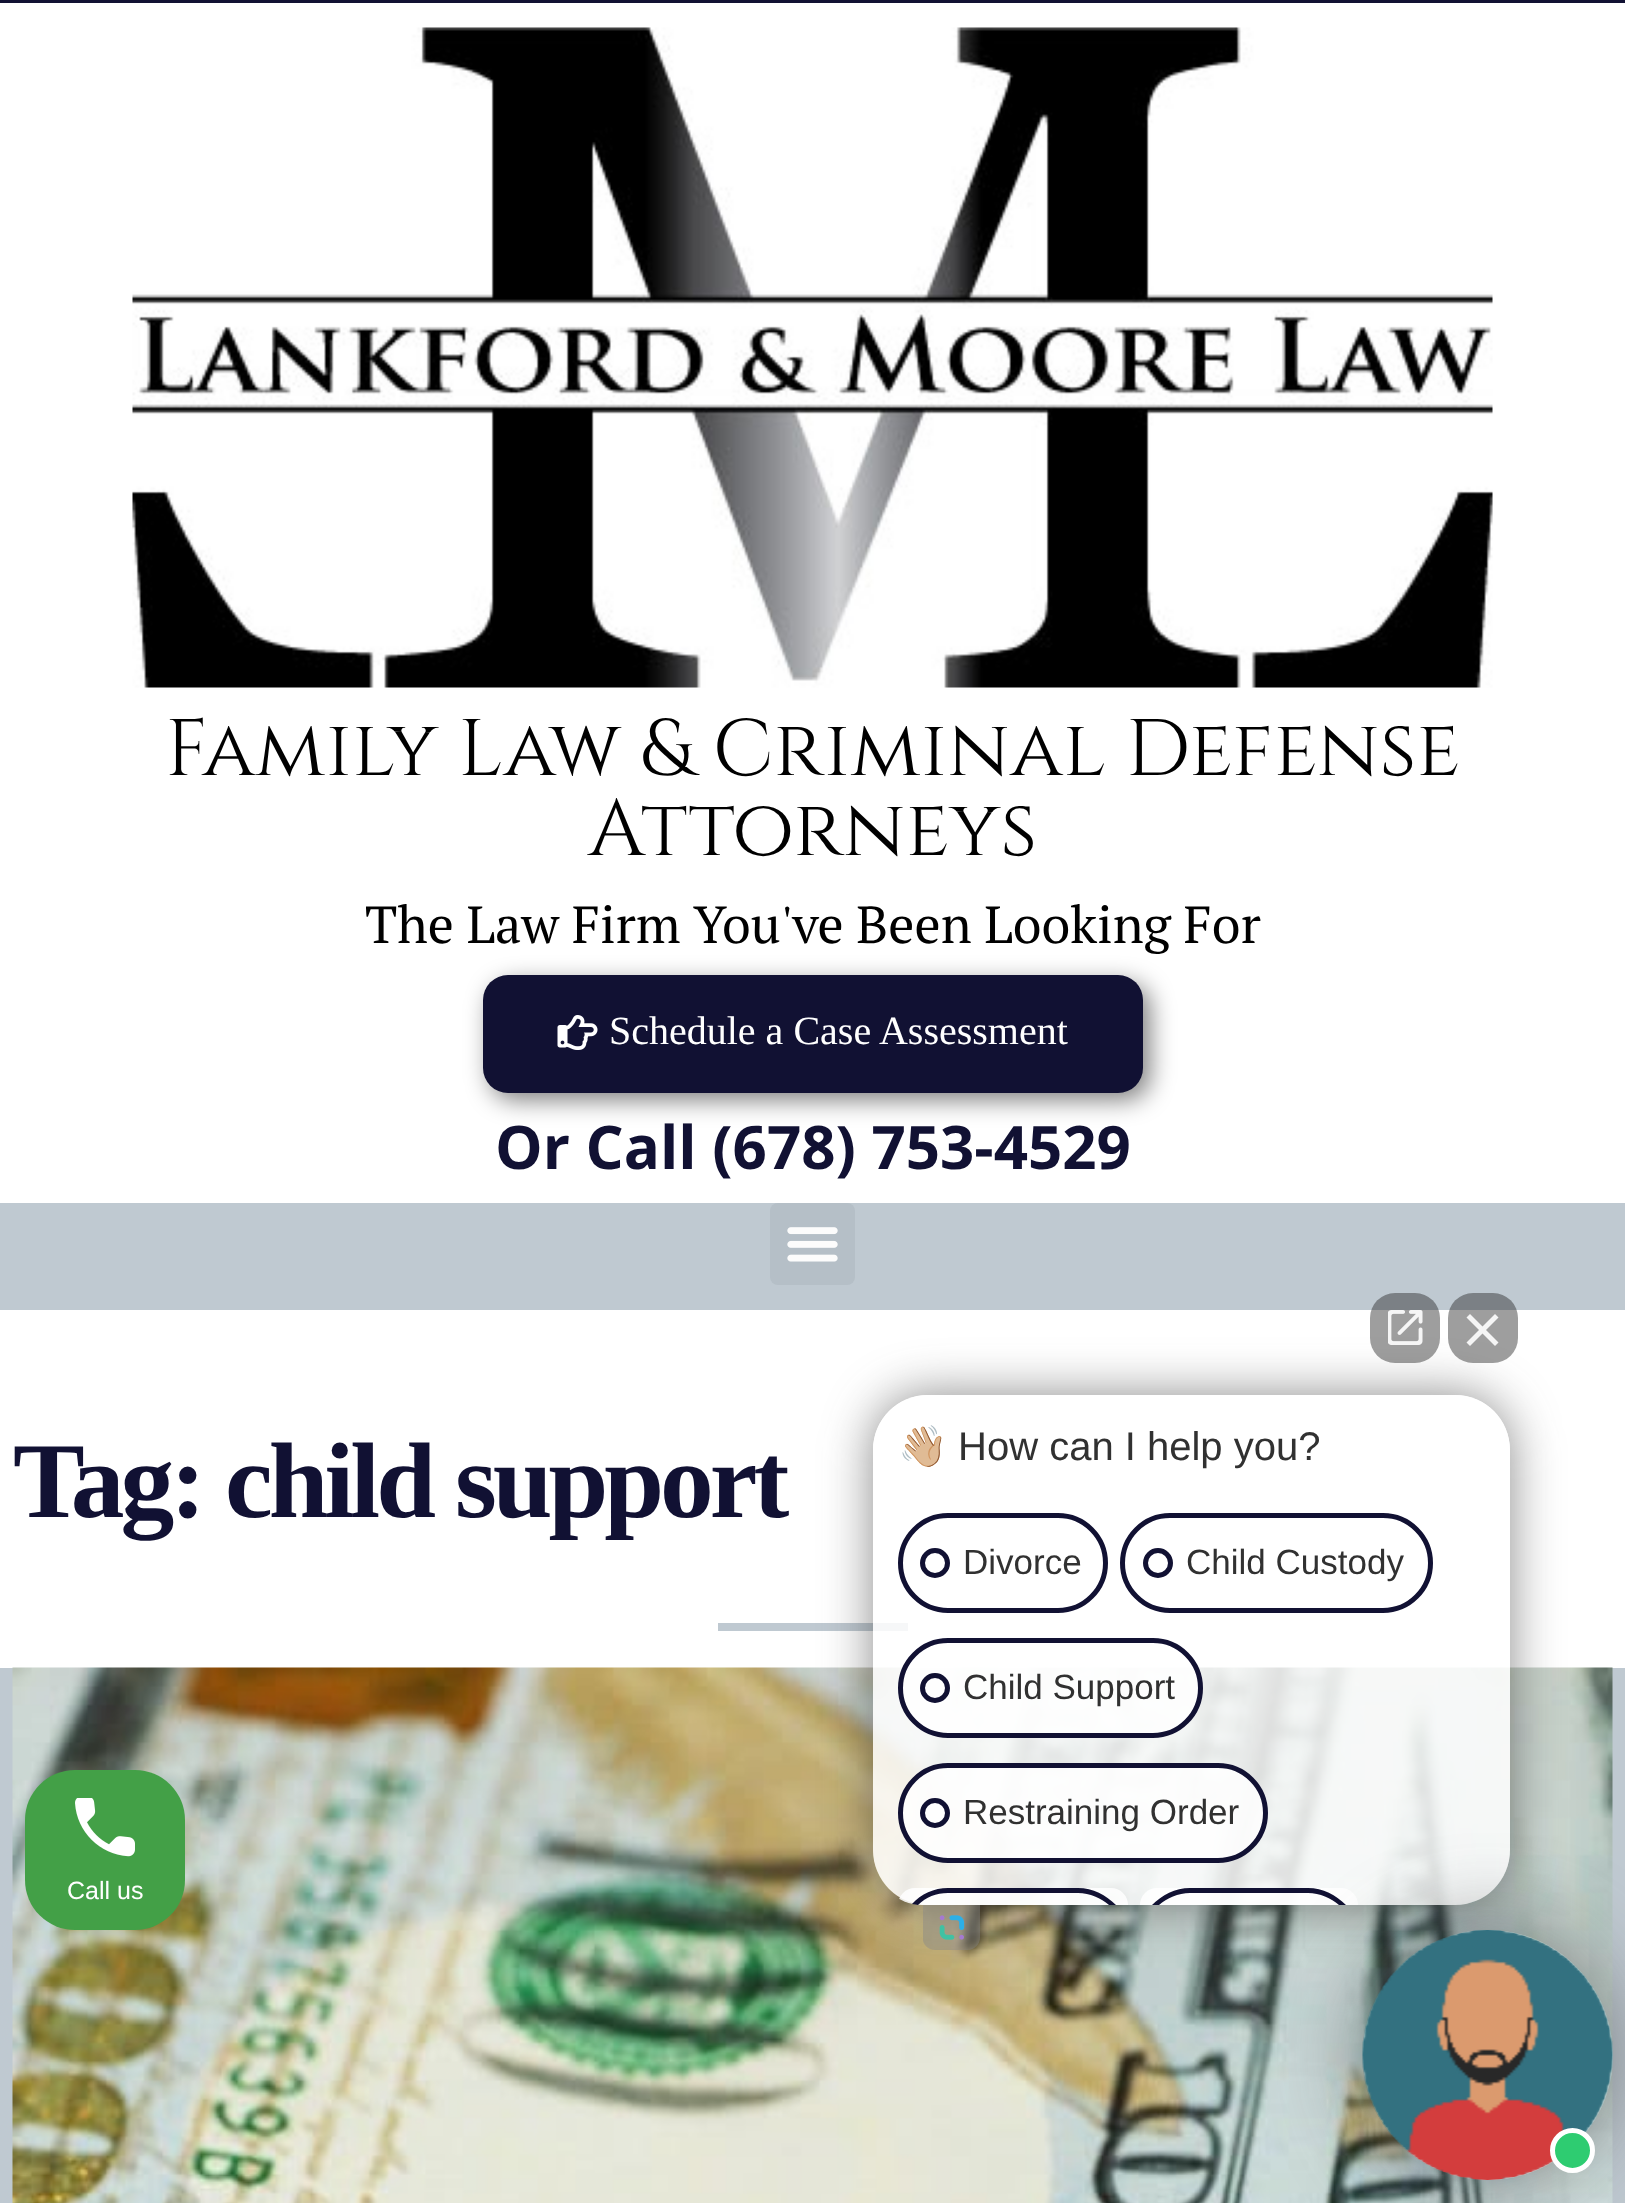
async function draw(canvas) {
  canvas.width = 1625
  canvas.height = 2203
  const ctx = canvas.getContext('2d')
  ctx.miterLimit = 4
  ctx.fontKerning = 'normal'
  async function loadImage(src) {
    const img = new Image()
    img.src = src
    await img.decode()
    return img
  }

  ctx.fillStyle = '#113'
  ctx.fillRect(0, 0, 1625, 2203)
  ctx.fillStyle = '#fff'
  ctx.fillRect(0, 3, 1625, 1200)
  ctx.drawImage(await loadImage('image0.png'), 132, 27, 1361, 661)
  ctx.font = '80px Cinzel'
  ctx.fillStyle = '#000'
  ctx.fillText('Family Law & Criminal Defense', 165, 775)
  ctx.fillText('Attorneys', 588, 855)
  ctx.font = '52px PT Serif'
  ctx.fillText('The Law Firm You\'ve Been Looking For', 365, 943)
  ctx.fillStyle = '#00000080'
  ctx.filter = 'blur(12.5px)'
  ctx.beginPath()
  ctx.roundRect(490, 983, 660, 117, 25)
  ctx.fill()
  ctx.filter = 'none'
  ctx.fillStyle = '#113'
  ctx.beginPath()
  ctx.roundRect(483, 975, 660, 118, 25)
  ctx.fill()
  ctx.drawImage(await loadImage('image1.png'), 557, 1015, 41, 35)
  ctx.font = '40px Liberation Serif'
  ctx.fillStyle = '#fff'
  ctx.fillText('Schedule a Case Assessment', 609, 1044)
  ctx.font = 'bold 60px Open Sans'
  ctx.fillStyle = '#113'
  ctx.fillText('Or Call (678) 753-4529', 495, 1169)
  ctx.fillStyle = '#bfc9d1'
  ctx.fillRect(0, 1203, 1625, 107)
  ctx.fillStyle = '#b5bfc7'
  ctx.beginPath()
  ctx.roundRect(770, 1203, 85, 82, 8)
  ctx.fill()
  ctx.drawImage(await loadImage('image2.png'), 787, 1227, 51, 35)
  ctx.fillStyle = '#fff'
  ctx.fillRect(0, 1310, 1625, 358)
  ctx.letterSpacing = '-4px'
  ctx.font = 'bold 107.5px Liberation Serif'
  ctx.fillStyle = '#113'
  ctx.fillText('Tag: child support', 13, 1517)
  ctx.fillStyle = '#bfc9d1'
  ctx.fillRect(718, 1623, 190, 8)
  ctx.fillRect(0, 1668, 1625, 535)
  ctx.drawImage(await loadImage('image3.png'), 12, 1667, 1601, 536)
  ctx.save()
  ctx.beginPath()
  ctx.moveTo(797, 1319)
  ctx.lineTo(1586, 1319)
  ctx.lineTo(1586, 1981)
  ctx.lineTo(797, 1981)
  ctx.closePath()
  ctx.moveTo(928, 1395)
  ctx.lineTo(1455, 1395)
  ctx.bezierCurveTo(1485.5, 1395, 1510, 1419.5, 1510, 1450)
  ctx.lineTo(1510, 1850)
  ctx.bezierCurveTo(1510, 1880.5, 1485.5, 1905, 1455, 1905)
  ctx.lineTo(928, 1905)
  ctx.bezierCurveTo(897.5, 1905, 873, 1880.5, 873, 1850)
  ctx.lineTo(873, 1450)
  ctx.bezierCurveTo(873, 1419.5, 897.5, 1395, 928, 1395)
  ctx.closePath()
  ctx.clip('evenodd')
  ctx.fillStyle = '#3c3c3c99'
  ctx.filter = 'blur(25px)'
  ctx.beginPath()
  ctx.roundRect(873, 1395, 637, 510, 55)
  ctx.fill()
  ctx.filter = 'none'
  ctx.restore()
  ctx.fillStyle = '#ffffffd9'
  ctx.beginPath()
  ctx.roundRect(873, 1395, 637, 510, 55)
  ctx.fill()
  ctx.fillStyle = '#27272773'
  ctx.beginPath()
  ctx.roundRect(1370, 1293, 70, 70, 25)
  ctx.fill()
  ctx.drawImage(await loadImage('image4.png'), 1388, 1310, 35, 35)
  ctx.beginPath()
  ctx.roundRect(1448, 1293, 70, 70, 25)
  ctx.fill()
  ctx.fillStyle = '#f5f5f5'
  ctx.beginPath()
  ctx.moveTo(1466.5, 1317.5)
  ctx.lineTo(1470, 1314)
  ctx.lineTo(1498.5, 1342.5)
  ctx.lineTo(1495, 1346)
  ctx.closePath()
  ctx.fill()
  ctx.beginPath()
  ctx.moveTo(1495, 1314)
  ctx.lineTo(1498.5, 1317.5)
  ctx.lineTo(1470, 1346)
  ctx.lineTo(1466.5, 1342.5)
  ctx.closePath()
  ctx.fill()
  ctx.letterSpacing = '0px'
  ctx.font = '40px Noto Color Emoji'
  ctx.fillStyle = '#313131'
  ctx.fillText('👋🏼', 898, 1460)
  ctx.font = '40px Liberation Sans'
  ctx.fillText('How can I help you?', 958, 1460)
  ctx.beginPath()
  ctx.roundRect(900.5, 1515.5, 205, 95, 47.5)
  ctx.strokeStyle = '#113'
  ctx.lineWidth = 5
  ctx.stroke()
  ctx.beginPath()
  ctx.arc(935, 1563, 12.5, 0, 2 * Math.PI)
  ctx.stroke()
  ctx.font = '35px Liberation Sans'
  ctx.fillText('Divorce', 963, 1574)
  ctx.beginPath()
  ctx.roundRect(1122.5, 1515.5, 308, 95, 47.5)
  ctx.stroke()
  ctx.beginPath()
  ctx.arc(1158, 1563, 12.5, 0, 2 * Math.PI)
  ctx.stroke()
  ctx.fillText('Child Custody', 1186, 1574)
  ctx.fillStyle = '#ffffffd9'
  ctx.beginPath()
  ctx.roundRect(900.5, 1640.5, 300, 95, 47.5)
  ctx.fill()
  ctx.stroke()
  ctx.beginPath()
  ctx.arc(935, 1688, 12.5, 0, 2 * Math.PI)
  ctx.stroke()
  ctx.fillStyle = '#313131'
  ctx.fillText('Child Support', 963, 1699)
  ctx.fillStyle = '#ffffffd9'
  ctx.beginPath()
  ctx.roundRect(900.5, 1765.5, 365, 95, 47.5)
  ctx.fill()
  ctx.stroke()
  ctx.fillStyle = '#fff'
  ctx.beginPath()
  ctx.arc(935, 1813, 12.5, 0, 2 * Math.PI)
  ctx.fill()
  ctx.stroke()
  ctx.fillStyle = '#313131'
  ctx.fillText('Restraining Order', 963, 1824)
  ctx.save()
  ctx.beginPath()
  ctx.roundRect(873, 1395, 637, 510, 50)
  ctx.clip()
  ctx.fillStyle = '#ffffffd9'
  ctx.beginPath()
  ctx.roundRect(898, 1888, 230, 17, [50, 50, 0, 0])
  ctx.fill()
  ctx.restore()
  ctx.fillStyle = '#113'
  ctx.beginPath()
  ctx.moveTo(948, 1888)
  ctx.bezierCurveTo(934, 1888, 921, 1894, 912, 1904)
  ctx.lineTo(918, 1905)
  ctx.bezierCurveTo(926, 1897, 936, 1893, 948, 1893)
  ctx.lineTo(1078, 1893)
  ctx.bezierCurveTo(1090, 1893, 1101, 1898, 1109, 1905)
  ctx.lineTo(1116, 1905)
  ctx.bezierCurveTo(1106, 1895, 1093, 1888, 1078, 1888)
  ctx.closePath()
  ctx.fill()
  ctx.fillStyle = '#ffffffd9'
  ctx.beginPath()
  ctx.roundRect(1140, 1888, 218, 17, [50, 50, 0, 0])
  ctx.fill()
  ctx.fillStyle = '#113'
  ctx.beginPath()
  ctx.moveTo(1190, 1888)
  ctx.bezierCurveTo(1175, 1888, 1162, 1895, 1152, 1905)
  ctx.lineTo(1159, 1905)
  ctx.bezierCurveTo(1167, 1898, 1178, 1893, 1190, 1893)
  ctx.lineTo(1308, 1893)
  ctx.bezierCurveTo(1320, 1893, 1331, 1898, 1339, 1905)
  ctx.lineTo(1346, 1905)
  ctx.bezierCurveTo(1336, 1895, 1323, 1888, 1308, 1888)
  ctx.closePath()
  ctx.fill()
  ctx.drawImage(await loadImage('image5.png'), 923, 1905, 57, 45)
  ctx.save()
  ctx.beginPath()
  ctx.moveTo(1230, 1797)
  ctx.lineTo(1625, 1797)
  ctx.lineTo(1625, 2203)
  ctx.lineTo(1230, 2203)
  ctx.closePath()
  ctx.moveTo(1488, 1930)
  ctx.bezierCurveTo(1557, 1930, 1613, 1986, 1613, 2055)
  ctx.bezierCurveTo(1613, 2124, 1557, 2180, 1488, 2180)
  ctx.bezierCurveTo(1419, 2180, 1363, 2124, 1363, 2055)
  ctx.bezierCurveTo(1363, 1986, 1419, 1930, 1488, 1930)
  ctx.closePath()
  ctx.clip('evenodd')
  ctx.fillStyle = '#3c3c3c99'
  ctx.filter = 'blur(44px)'
  ctx.beginPath()
  ctx.roundRect(1363, 1930, 250, 250, 125)
  ctx.fill()
  ctx.filter = 'none'
  ctx.restore()
  ctx.drawImage(await loadImage('image6.png'), 1362, 1930, 251, 250)
  ctx.fillStyle = '#2ecc71'
  ctx.beginPath()
  ctx.arc(1572.5, 2150.5, 20, 0, 2 * Math.PI)
  ctx.fill()
  ctx.strokeStyle = '#fff'
  ctx.stroke()
  ctx.fillStyle = '#43a047'
  ctx.beginPath()
  ctx.roundRect(25, 1770, 160, 160, 50)
  ctx.fill()
  ctx.drawImage(await loadImage('image7.png'), 75, 1798, 60, 59)
  ctx.font = '25px Liberation Sans'
  ctx.fillStyle = '#fff'
  ctx.fillText('Call us', 67, 1899)
}

draw(document.querySelector('canvas'))
